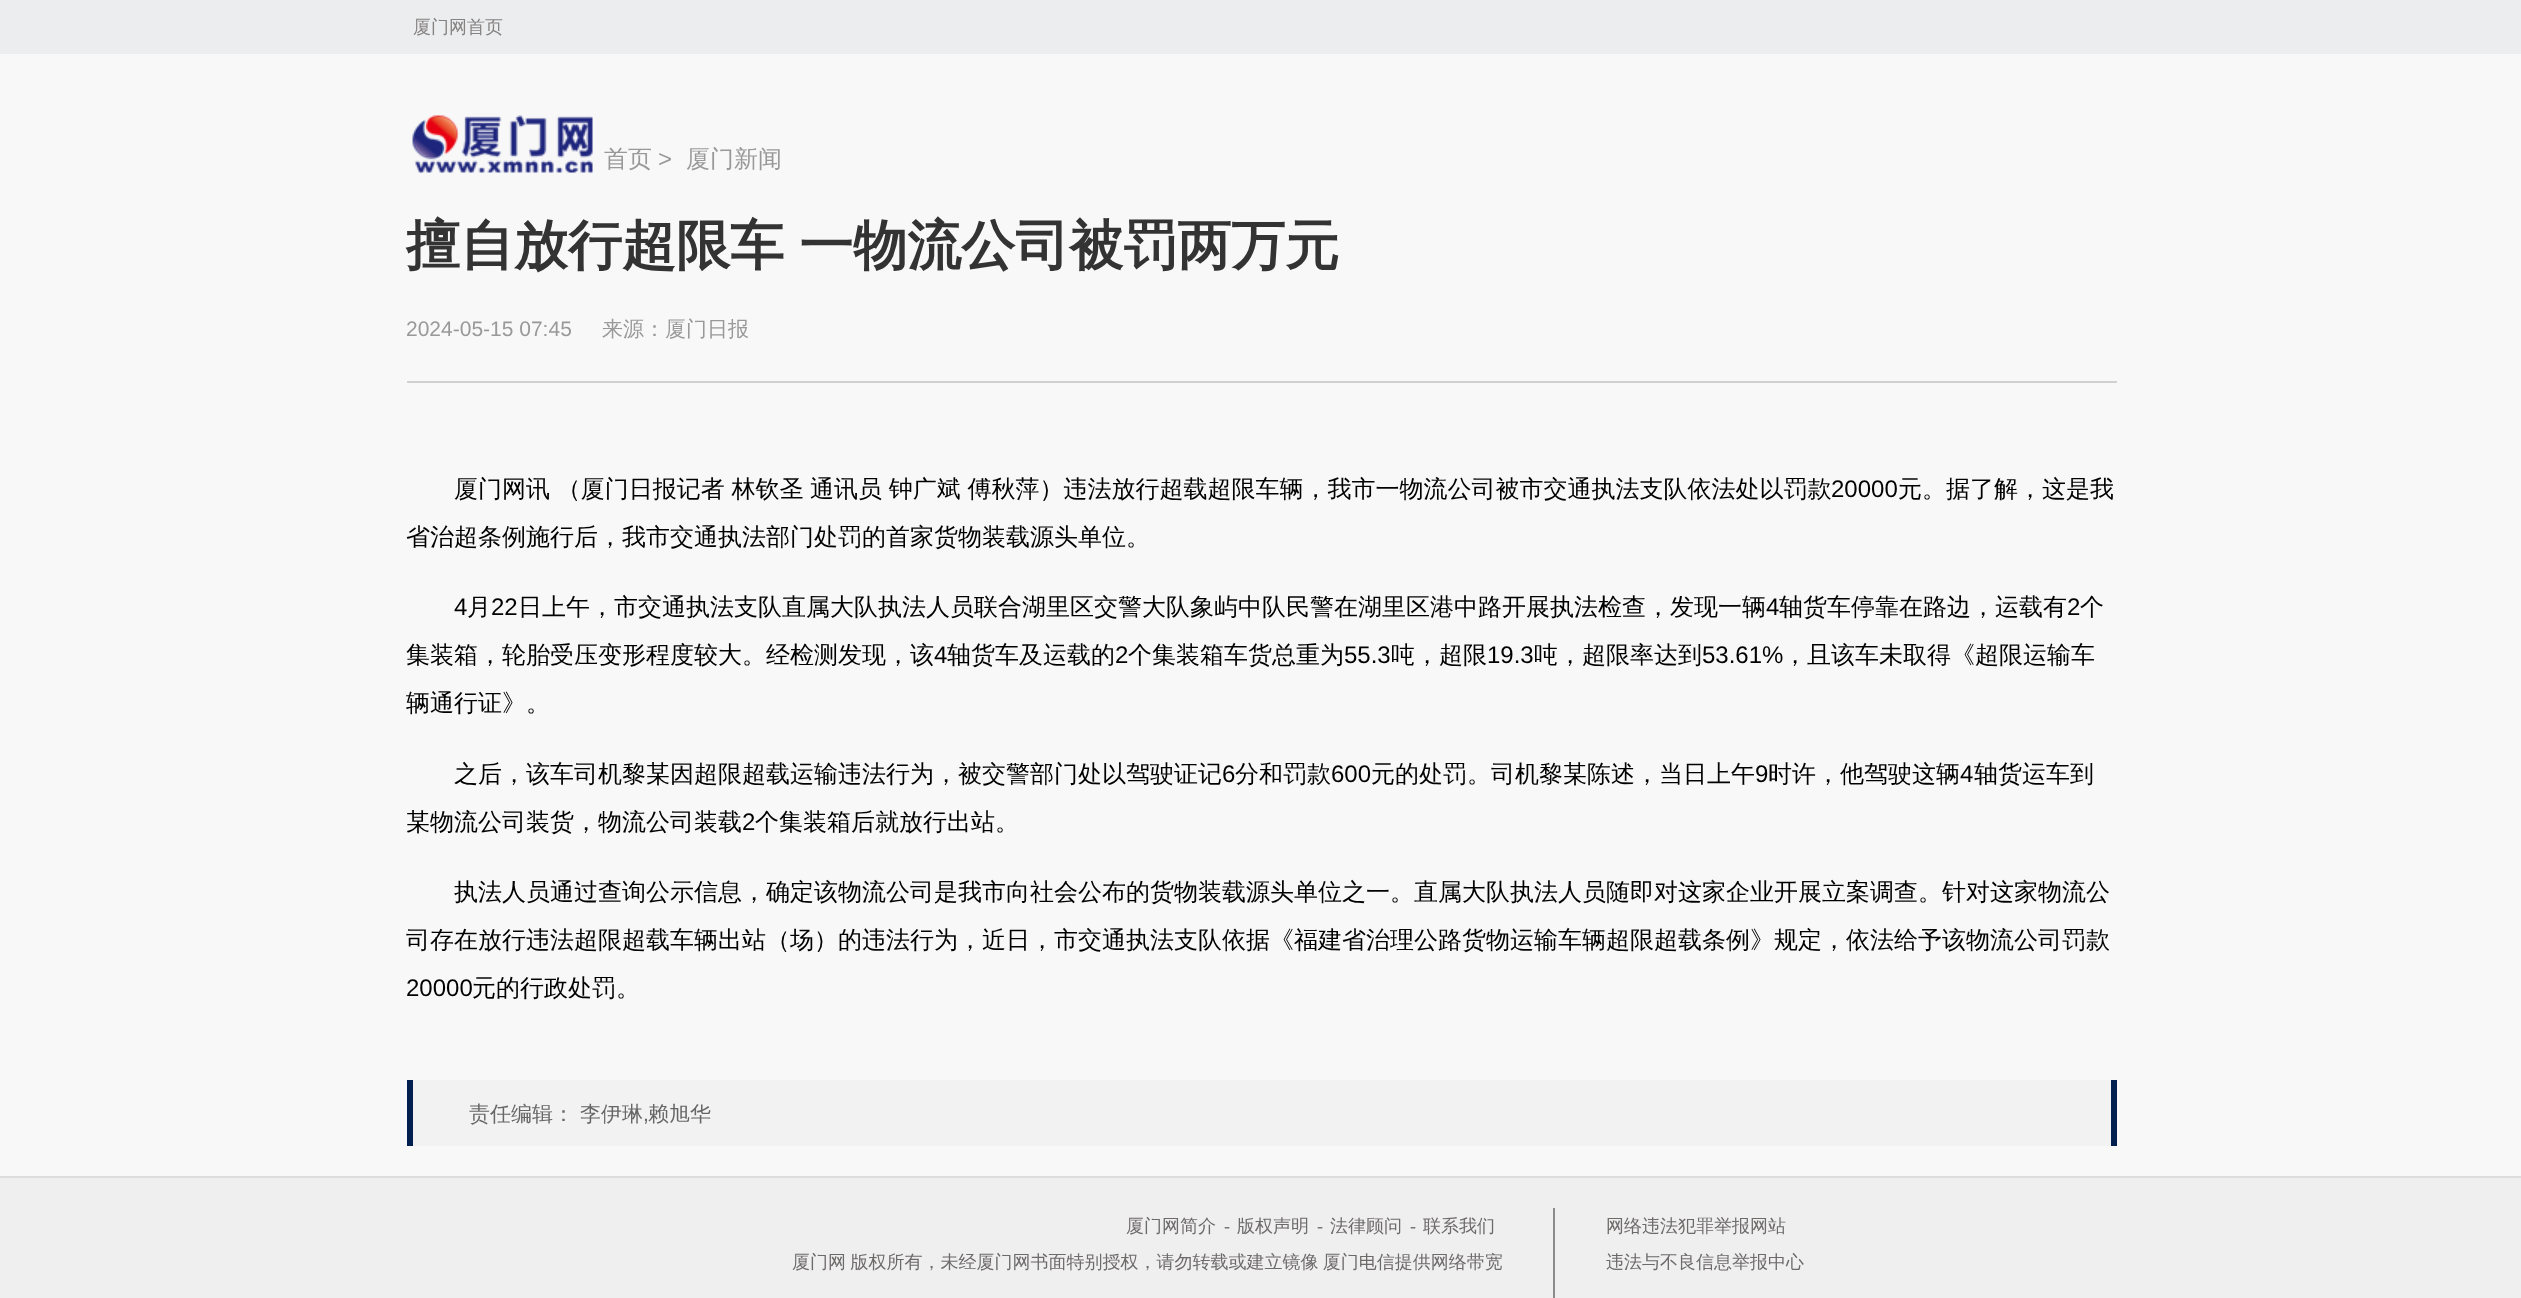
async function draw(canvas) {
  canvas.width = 2521
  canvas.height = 1298
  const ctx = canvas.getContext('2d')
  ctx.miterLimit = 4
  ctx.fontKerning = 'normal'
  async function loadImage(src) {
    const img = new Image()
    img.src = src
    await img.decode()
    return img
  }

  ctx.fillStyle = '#f8f8f8'
  ctx.fillRect(0, 0, 2521, 1298)
  ctx.fillStyle = '#ecedee'
  ctx.fillRect(0, 0, 2521, 54)
  ctx.font = '500 18px WenQuanYi Zen Hei'
  ctx.fillStyle = '#858282'
  ctx.fillText('厦门网首页', 413, 33)
  ctx.drawImage(await loadImage('image0.png'), 412, 115, 181, 58)
  ctx.font = '500 24px WenQuanYi Zen Hei'
  ctx.fillStyle = '#999'
  ctx.fillText('首页', 604, 167)
  ctx.font = '24px Liberation Sans'
  ctx.fillText('>', 658, 167)
  ctx.font = '500 24px WenQuanYi Zen Hei'
  ctx.fillText('厦门新闻', 686, 167)
  ctx.wordSpacing = '-1px'
  ctx.font = 'bold 54px WenQuanYi Zen Hei'
  ctx.fillStyle = '#333'
  ctx.fillText('擅自放行超限车 一物流公司被罚两万元', 406, 264)
  ctx.wordSpacing = '0px'
  ctx.font = '21px Liberation Sans'
  ctx.fillStyle = '#999'
  ctx.fillText('2024-05-15 07:45', 406, 336)
  ctx.font = '500 21px WenQuanYi Zen Hei'
  ctx.fillText('来源：厦门日报', 602, 336)
  ctx.fillStyle = '#d0d0d0'
  ctx.fillRect(407, 381, 1710, 2)
  ctx.wordSpacing = '-0.5px'
  ctx.font = '500 24px WenQuanYi Zen Hei'
  ctx.fillStyle = '#000'
  ctx.fillText('厦门网讯 （厦门日报记者 林钦圣 通讯员 钟广斌 傅秋萍）违法放行超载超限车辆，我市一物流公司被市交通执法支队依法处以罚款', 454, 497)
  ctx.wordSpacing = '0px'
  ctx.font = '24px Liberation Sans'
  ctx.fillText('20000', 1831, 497)
  ctx.font = '500 24px WenQuanYi Zen Hei'
  ctx.fillText('元。据了解，这是我', 1898, 497)
  ctx.fillText('省治超条例施行后，我市交通执法部门处罚的首家货物装载源头单位。', 406, 545)
  ctx.font = '24px Liberation Sans'
  ctx.fillText('4', 454, 615)
  ctx.font = '500 24px WenQuanYi Zen Hei'
  ctx.fillText('月', 467, 615)
  ctx.font = '24px Liberation Sans'
  ctx.fillText('22', 491, 615)
  ctx.font = '500 24px WenQuanYi Zen Hei'
  ctx.fillText('日上午，市交通执法支队直属大队执法人员联合湖里区交警大队象屿中队民警在湖里区港中路开展执法检查，发现一辆', 518, 615)
  ctx.font = '24px Liberation Sans'
  ctx.fillText('4', 1766, 615)
  ctx.font = '500 24px WenQuanYi Zen Hei'
  ctx.fillText('轴货车停靠在路边，运载有', 1779, 615)
  ctx.font = '24px Liberation Sans'
  ctx.fillText('2', 2067, 615)
  ctx.font = '500 24px WenQuanYi Zen Hei'
  ctx.fillText('个', 2080, 615)
  ctx.fillText('集装箱，轮胎受压变形程度较大。经检测发现，该', 406, 663)
  ctx.font = '24px Liberation Sans'
  ctx.fillText('4', 934, 663)
  ctx.font = '500 24px WenQuanYi Zen Hei'
  ctx.fillText('轴货车及运载的', 947, 663)
  ctx.font = '24px Liberation Sans'
  ctx.fillText('2', 1115, 663)
  ctx.font = '500 24px WenQuanYi Zen Hei'
  ctx.fillText('个集装箱车货总重为', 1128, 663)
  ctx.font = '24px Liberation Sans'
  ctx.fillText('55.3', 1344, 663)
  ctx.font = '500 24px WenQuanYi Zen Hei'
  ctx.fillText('吨，超限', 1391, 663)
  ctx.font = '24px Liberation Sans'
  ctx.fillText('19.3', 1487, 663)
  ctx.font = '500 24px WenQuanYi Zen Hei'
  ctx.fillText('吨，超限率达到', 1534, 663)
  ctx.font = '24px Liberation Sans'
  ctx.fillText('53.61%', 1702, 663)
  ctx.font = '500 24px WenQuanYi Zen Hei'
  ctx.fillText('，且该车未取得《超限运输车', 1783, 663)
  ctx.fillText('辆通行证》。', 406, 711)
  ctx.fillText('之后，该车司机黎某因超限超载运输违法行为，被交警部门处以驾驶证记', 454, 782)
  ctx.font = '24px Liberation Sans'
  ctx.fillText('6', 1222, 782)
  ctx.font = '500 24px WenQuanYi Zen Hei'
  ctx.fillText('分和罚款', 1235, 782)
  ctx.font = '24px Liberation Sans'
  ctx.fillText('600', 1331, 782)
  ctx.font = '500 24px WenQuanYi Zen Hei'
  ctx.fillText('元的处罚。司机黎某陈述，当日上午', 1371, 782)
  ctx.font = '24px Liberation Sans'
  ctx.fillText('9', 1755, 782)
  ctx.font = '500 24px WenQuanYi Zen Hei'
  ctx.fillText('时许，他驾驶这辆', 1768, 782)
  ctx.font = '24px Liberation Sans'
  ctx.fillText('4', 1960, 782)
  ctx.font = '500 24px WenQuanYi Zen Hei'
  ctx.fillText('轴货运车到', 1974, 782)
  ctx.fillText('某物流公司装货，物流公司装载', 406, 830)
  ctx.font = '24px Liberation Sans'
  ctx.fillText('2', 742, 830)
  ctx.font = '500 24px WenQuanYi Zen Hei'
  ctx.fillText('个集装箱后就放行出站。', 755, 830)
  ctx.fillText('执法人员通过查询公示信息，确定该物流公司是我市向社会公布的货物装载源头单位之一。直属大队执法人员随即对这家企业开展立案调查。针对这家物流公', 454, 900)
  ctx.fillText('司存在放行违法超限超载车辆出站（场）的违法行为，近日，市交通执法支队依据《福建省治理公路货物运输车辆超限超载条例》规定，依法给予该物流公司罚款', 406, 948)
  ctx.font = '24px Liberation Sans'
  ctx.fillText('20000', 406, 996)
  ctx.font = '500 24px WenQuanYi Zen Hei'
  ctx.fillText('元的行政处罚。', 472, 996)
  ctx.fillStyle = '#f2f2f2'
  ctx.fillRect(413, 1080, 1698, 66)
  ctx.fillStyle = '#01204f'
  ctx.fillRect(2111, 1080, 6, 66)
  ctx.fillRect(407, 1080, 6, 66)
  ctx.font = '500 21px WenQuanYi Zen Hei'
  ctx.fillStyle = '#666'
  ctx.fillText('责任编辑：', 469, 1121)
  ctx.fillText('李伊琳', 580, 1121)
  ctx.font = '21px Liberation Sans'
  ctx.fillText(',', 643, 1121)
  ctx.font = '500 21px WenQuanYi Zen Hei'
  ctx.fillText('赖旭华', 648, 1121)
  ctx.fillStyle = '#efefef'
  ctx.fillRect(0, 1178, 2521, 120)
  ctx.fillStyle = '#ddd'
  ctx.fillRect(0, 1176, 2521, 2)
  ctx.font = '500 18px WenQuanYi Zen Hei'
  ctx.fillStyle = '#6d6a6a'
  ctx.fillText('厦门网简介', 1126, 1232)
  ctx.font = '18px Liberation Serif'
  ctx.fillText('-', 1224, 1232)
  ctx.font = '500 18px WenQuanYi Zen Hei'
  ctx.fillText('版权声明', 1237, 1232)
  ctx.font = '18px Liberation Serif'
  ctx.fillText('-', 1317, 1232)
  ctx.font = '500 18px WenQuanYi Zen Hei'
  ctx.fillText('法律顾问', 1330, 1232)
  ctx.font = '18px Liberation Serif'
  ctx.fillText('-', 1410, 1232)
  ctx.font = '500 18px WenQuanYi Zen Hei'
  ctx.fillText('联系我们', 1423, 1232)
  ctx.wordSpacing = '-1px'
  ctx.fillText('厦门网 版权所有，未经厦门网书面特别授权，请勿转载或建立镜像 厦门电信提供网络带宽', 792, 1268)
  ctx.fillStyle = '#8d8a8a'
  ctx.fillRect(1553, 1208, 2, 90)
  ctx.wordSpacing = '0px'
  ctx.fillStyle = '#6d6a6a'
  ctx.fillText('网络违法犯罪举报网站', 1606, 1232)
  ctx.fillText('违法与不良信息举报中心', 1606, 1268)
}

draw(document.querySelector('canvas'))
